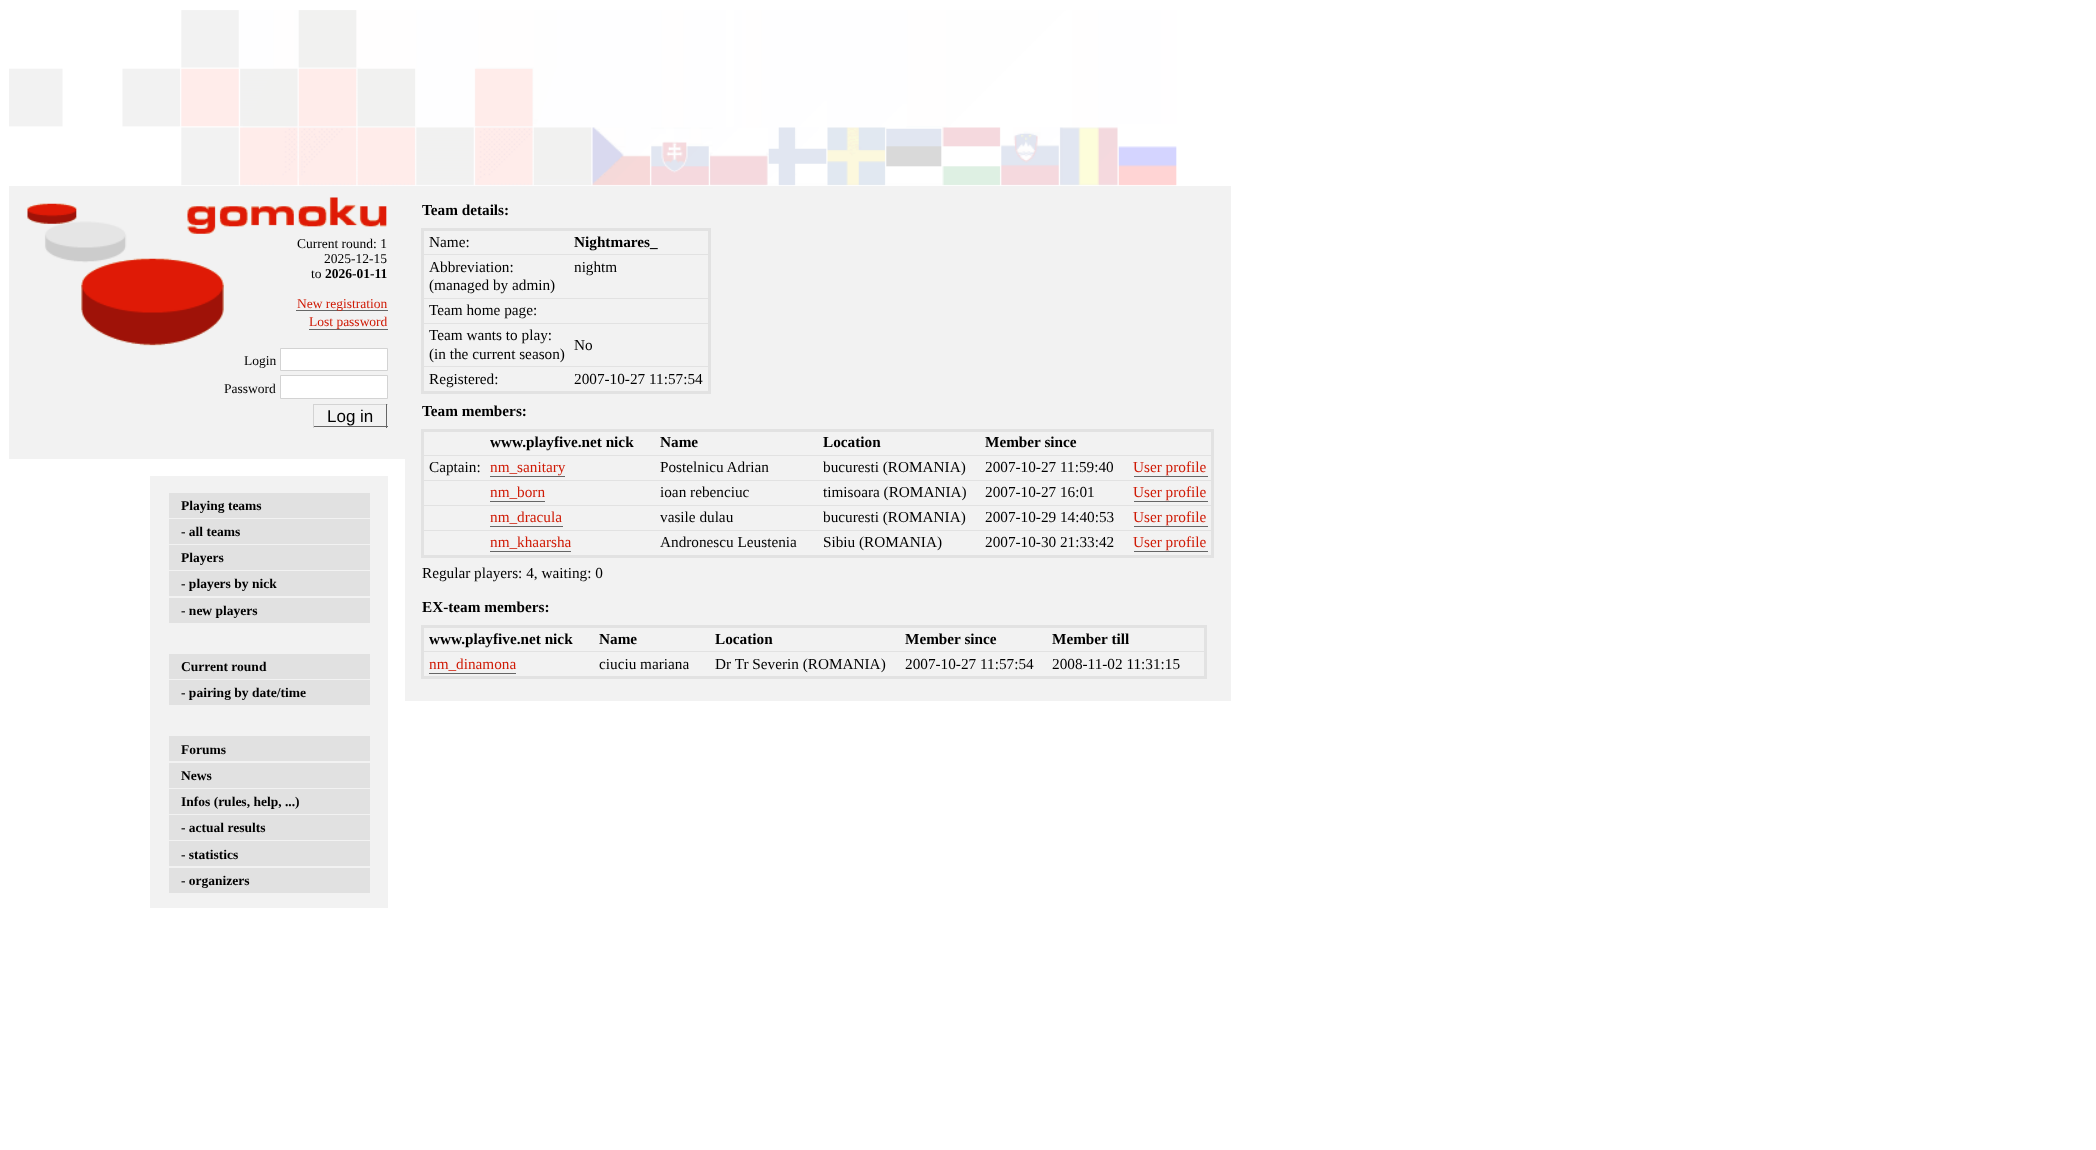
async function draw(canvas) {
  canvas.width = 2096
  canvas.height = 1150
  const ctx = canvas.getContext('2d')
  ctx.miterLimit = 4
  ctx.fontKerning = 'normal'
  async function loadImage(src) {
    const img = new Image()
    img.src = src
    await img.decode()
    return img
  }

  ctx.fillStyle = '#fff'
  ctx.fillRect(0, 0, 2096, 1150)
  ctx.drawImage(await loadImage('image0.png'), 9, 10, 1168, 176)
  ctx.fillStyle = '#f2f2f2'
  ctx.fillRect(9, 186, 396, 273)
  ctx.drawImage(await loadImage('image1.png'), 27, 197, 360, 149)
  ctx.font = '13.5px Liberation Serif'
  ctx.fillStyle = '#000'
  ctx.fillText('Current round: 1', 297, 248)
  ctx.fillText('2025-12-15', 324, 263)
  ctx.fillText('to', 311, 278)
  ctx.font = 'bold 13.5px Liberation Serif'
  ctx.fillText('2026-01-11', 325, 278)
  ctx.fillStyle = '#666'
  ctx.fillRect(296, 310, 92, 1)
  ctx.font = '13.5px Liberation Serif'
  ctx.fillStyle = '#cf1a05'
  ctx.fillText('New registration', 297, 308)
  ctx.fillText('Lost password', 309, 326)
  ctx.fillStyle = '#666'
  ctx.fillRect(309, 329, 79, 1)
  ctx.fillStyle = '#000'
  ctx.fillText('Login', 244, 365)
  ctx.fillStyle = '#fff'
  ctx.beginPath()
  ctx.rect(280.5, 348.5, 107, 22)
  ctx.fill()
  ctx.strokeStyle = '#d3d3d3'
  ctx.stroke()
  ctx.fillStyle = '#000'
  ctx.fillText('Password', 224, 393)
  ctx.fillStyle = '#fff'
  ctx.beginPath()
  ctx.rect(280.5, 375.5, 107, 23)
  ctx.fill()
  ctx.stroke()
  ctx.fillStyle = '#d3d3d3'
  ctx.fillRect(313, 404, 75, 1)
  ctx.fillStyle = '#666'
  ctx.fillRect(386, 404, 1, 24)
  ctx.fillRect(313, 426, 75, 1)
  ctx.fillStyle = '#d3d3d3'
  ctx.fillRect(313, 404, 1, 24)
  ctx.font = '17px Liberation Sans'
  ctx.fillStyle = '#000'
  ctx.fillText('Log in', 327, 422)
  ctx.fillStyle = '#f2f2f2'
  ctx.fillRect(150, 476, 238, 432)
  ctx.fillStyle = '#e1e1e1'
  ctx.fillRect(169, 493, 201, 25)
  ctx.font = 'bold 13.5px Liberation Serif'
  ctx.fillStyle = '#000'
  ctx.fillText('Playing teams', 181, 510)
  ctx.fillStyle = '#e1e1e1'
  ctx.fillRect(169, 519, 201, 25)
  ctx.fillStyle = '#000'
  ctx.fillText('- all teams', 181, 536)
  ctx.fillStyle = '#e1e1e1'
  ctx.fillRect(169, 545, 201, 25)
  ctx.fillStyle = '#000'
  ctx.fillText('Players', 181, 562)
  ctx.fillStyle = '#e1e1e1'
  ctx.fillRect(169, 571, 201, 25)
  ctx.fillStyle = '#000'
  ctx.fillText('- players by nick', 181, 588)
  ctx.fillStyle = '#e1e1e1'
  ctx.fillRect(169, 598, 201, 25)
  ctx.fillStyle = '#000'
  ctx.fillText('- new players', 181, 615)
  ctx.fillStyle = '#e1e1e1'
  ctx.fillRect(169, 654, 201, 25)
  ctx.fillStyle = '#000'
  ctx.fillText('Current round', 181, 671)
  ctx.fillStyle = '#e1e1e1'
  ctx.fillRect(169, 680, 201, 25)
  ctx.fillStyle = '#000'
  ctx.fillText('- pairing by date/time', 181, 697)
  ctx.fillStyle = '#e1e1e1'
  ctx.fillRect(169, 736, 201, 25)
  ctx.fillStyle = '#000'
  ctx.fillText('Forums', 181, 754)
  ctx.fillStyle = '#e1e1e1'
  ctx.fillRect(169, 763, 201, 25)
  ctx.fillStyle = '#000'
  ctx.fillText('News', 181, 780)
  ctx.fillStyle = '#e1e1e1'
  ctx.fillRect(169, 789, 201, 25)
  ctx.fillStyle = '#000'
  ctx.fillText('Infos (rules, help, ...)', 181, 806)
  ctx.fillStyle = '#e1e1e1'
  ctx.fillRect(169, 815, 201, 25)
  ctx.fillStyle = '#000'
  ctx.fillText('- actual results', 181, 832)
  ctx.fillStyle = '#e1e1e1'
  ctx.fillRect(169, 841, 201, 25)
  ctx.fillStyle = '#000'
  ctx.fillText('- statistics', 181, 859)
  ctx.fillStyle = '#e1e1e1'
  ctx.fillRect(169, 868, 201, 25)
  ctx.fillStyle = '#000'
  ctx.fillText('- organizers', 181, 885)
  ctx.fillStyle = '#f2f2f2'
  ctx.fillRect(405, 186, 826, 515)
  ctx.font = 'bold 15.25px Liberation Serif'
  ctx.fillStyle = '#000'
  ctx.fillText('Team details:', 422, 215)
  ctx.fillStyle = '#e2e2e2'
  ctx.fillRect(421, 228, 289, 3)
  ctx.fillRect(423, 254, 287, 1)
  ctx.fillRect(423, 298, 287, 1)
  ctx.fillRect(423, 323, 287, 1)
  ctx.fillRect(423, 366, 287, 1)
  ctx.fillRect(708, 228, 3, 166)
  ctx.fillRect(421, 391, 289, 3)
  ctx.fillRect(421, 228, 3, 166)
  ctx.font = '15.25px Liberation Serif'
  ctx.fillStyle = '#000'
  ctx.fillText('Name:', 429, 247)
  ctx.font = 'bold 15.25px Liberation Serif'
  ctx.fillText('Nightmares_', 574, 247)
  ctx.font = '15.25px Liberation Serif'
  ctx.fillText('Abbreviation:', 429, 272)
  ctx.fillText('(managed by admin)', 429, 290)
  ctx.fillText('nightm', 574, 272)
  ctx.fillText('Team home page:', 429, 315)
  ctx.fillText('Team wants to play:', 429, 340)
  ctx.fillText('(in the current season)', 429, 359)
  ctx.fillText('No', 574, 350)
  ctx.fillText('Registered:', 429, 384)
  ctx.fillText('2007-10-27 11:57:54', 574, 384)
  ctx.font = 'bold 15.25px Liberation Serif'
  ctx.fillText('Team members:', 422, 416)
  ctx.fillStyle = '#e2e2e2'
  ctx.fillRect(421, 429, 793, 3)
  ctx.fillRect(423, 455, 791, 1)
  ctx.fillRect(423, 480, 791, 1)
  ctx.fillRect(423, 505, 791, 1)
  ctx.fillRect(423, 530, 791, 1)
  ctx.fillRect(1211, 429, 3, 129)
  ctx.fillRect(421, 555, 793, 3)
  ctx.fillRect(421, 429, 3, 129)
  ctx.fillStyle = '#000'
  ctx.fillText('www.playfive.net nick', 490, 447)
  ctx.fillText('Name', 660, 447)
  ctx.fillText('Location', 823, 447)
  ctx.fillText('Member since', 985, 447)
  ctx.font = '15.25px Liberation Serif'
  ctx.fillText('Captain:', 429, 472)
  ctx.fillStyle = '#cf1a05'
  ctx.fillText('nm_sanitary', 490, 472)
  ctx.fillStyle = '#666'
  ctx.fillRect(490, 476, 75, 1)
  ctx.fillStyle = '#000'
  ctx.fillText('Postelnicu Adrian', 660, 472)
  ctx.fillText('bucuresti (ROMANIA)', 823, 472)
  ctx.fillText('2007-10-27 11:59:40', 985, 472)
  ctx.fillStyle = '#cf1a05'
  ctx.fillText('User profile', 1133, 472)
  ctx.fillStyle = '#666'
  ctx.fillRect(1134, 476, 74, 1)
  ctx.fillStyle = '#cf1a05'
  ctx.fillText('nm_born', 490, 497)
  ctx.fillStyle = '#666'
  ctx.fillRect(490, 501, 55, 1)
  ctx.fillStyle = '#000'
  ctx.fillText('ioan rebenciuc', 660, 497)
  ctx.fillText('timisoara (ROMANIA)', 823, 497)
  ctx.fillText('2007-10-27 16:01', 985, 497)
  ctx.fillStyle = '#cf1a05'
  ctx.fillText('User profile', 1133, 497)
  ctx.fillStyle = '#666'
  ctx.fillRect(1134, 501, 74, 1)
  ctx.fillStyle = '#cf1a05'
  ctx.fillText('nm_dracula', 490, 522)
  ctx.fillStyle = '#666'
  ctx.fillRect(490, 526, 73, 1)
  ctx.fillStyle = '#000'
  ctx.fillText('vasile dulau', 660, 522)
  ctx.fillText('bucuresti (ROMANIA)', 823, 522)
  ctx.fillText('2007-10-29 14:40:53', 985, 522)
  ctx.fillStyle = '#cf1a05'
  ctx.fillText('User profile', 1133, 522)
  ctx.fillStyle = '#666'
  ctx.fillRect(1134, 526, 74, 1)
  ctx.fillStyle = '#cf1a05'
  ctx.fillText('nm_khaarsha', 490, 547)
  ctx.fillStyle = '#666'
  ctx.fillRect(490, 551, 81, 1)
  ctx.fillStyle = '#000'
  ctx.fillText('Andronescu Leustenia', 660, 547)
  ctx.fillText('Sibiu (ROMANIA)', 823, 547)
  ctx.fillText('2007-10-30 21:33:42', 985, 547)
  ctx.fillStyle = '#cf1a05'
  ctx.fillText('User profile', 1133, 547)
  ctx.fillStyle = '#666'
  ctx.fillRect(1134, 551, 74, 1)
  ctx.fillStyle = '#000'
  ctx.fillText('Regular players: 4, waiting: 0', 422, 578)
  ctx.font = 'bold 15.25px Liberation Serif'
  ctx.fillText('EX-team members:', 422, 612)
  ctx.fillStyle = '#e2e2e2'
  ctx.fillRect(421, 625, 785, 3)
  ctx.fillRect(423, 651, 782, 1)
  ctx.fillRect(1204, 625, 3, 54)
  ctx.fillRect(421, 676, 785, 3)
  ctx.fillRect(421, 625, 3, 54)
  ctx.fillStyle = '#000'
  ctx.fillText('www.playfive.net nick', 429, 644)
  ctx.fillText('Name', 599, 644)
  ctx.fillText('Location', 715, 644)
  ctx.fillText('Member since', 905, 644)
  ctx.fillText('Member till', 1052, 644)
  ctx.font = '15.25px Liberation Serif'
  ctx.fillStyle = '#cf1a05'
  ctx.fillText('nm_dinamona', 429, 669)
  ctx.fillStyle = '#666'
  ctx.fillRect(429, 673, 87, 1)
  ctx.fillStyle = '#000'
  ctx.fillText('ciuciu mariana', 599, 669)
  ctx.fillText('Dr Tr Severin (ROMANIA)', 715, 669)
  ctx.fillText('2007-10-27 11:57:54', 905, 669)
  ctx.fillText('2008-11-02 11:31:15', 1052, 669)
}

draw(document.querySelector('canvas'))
